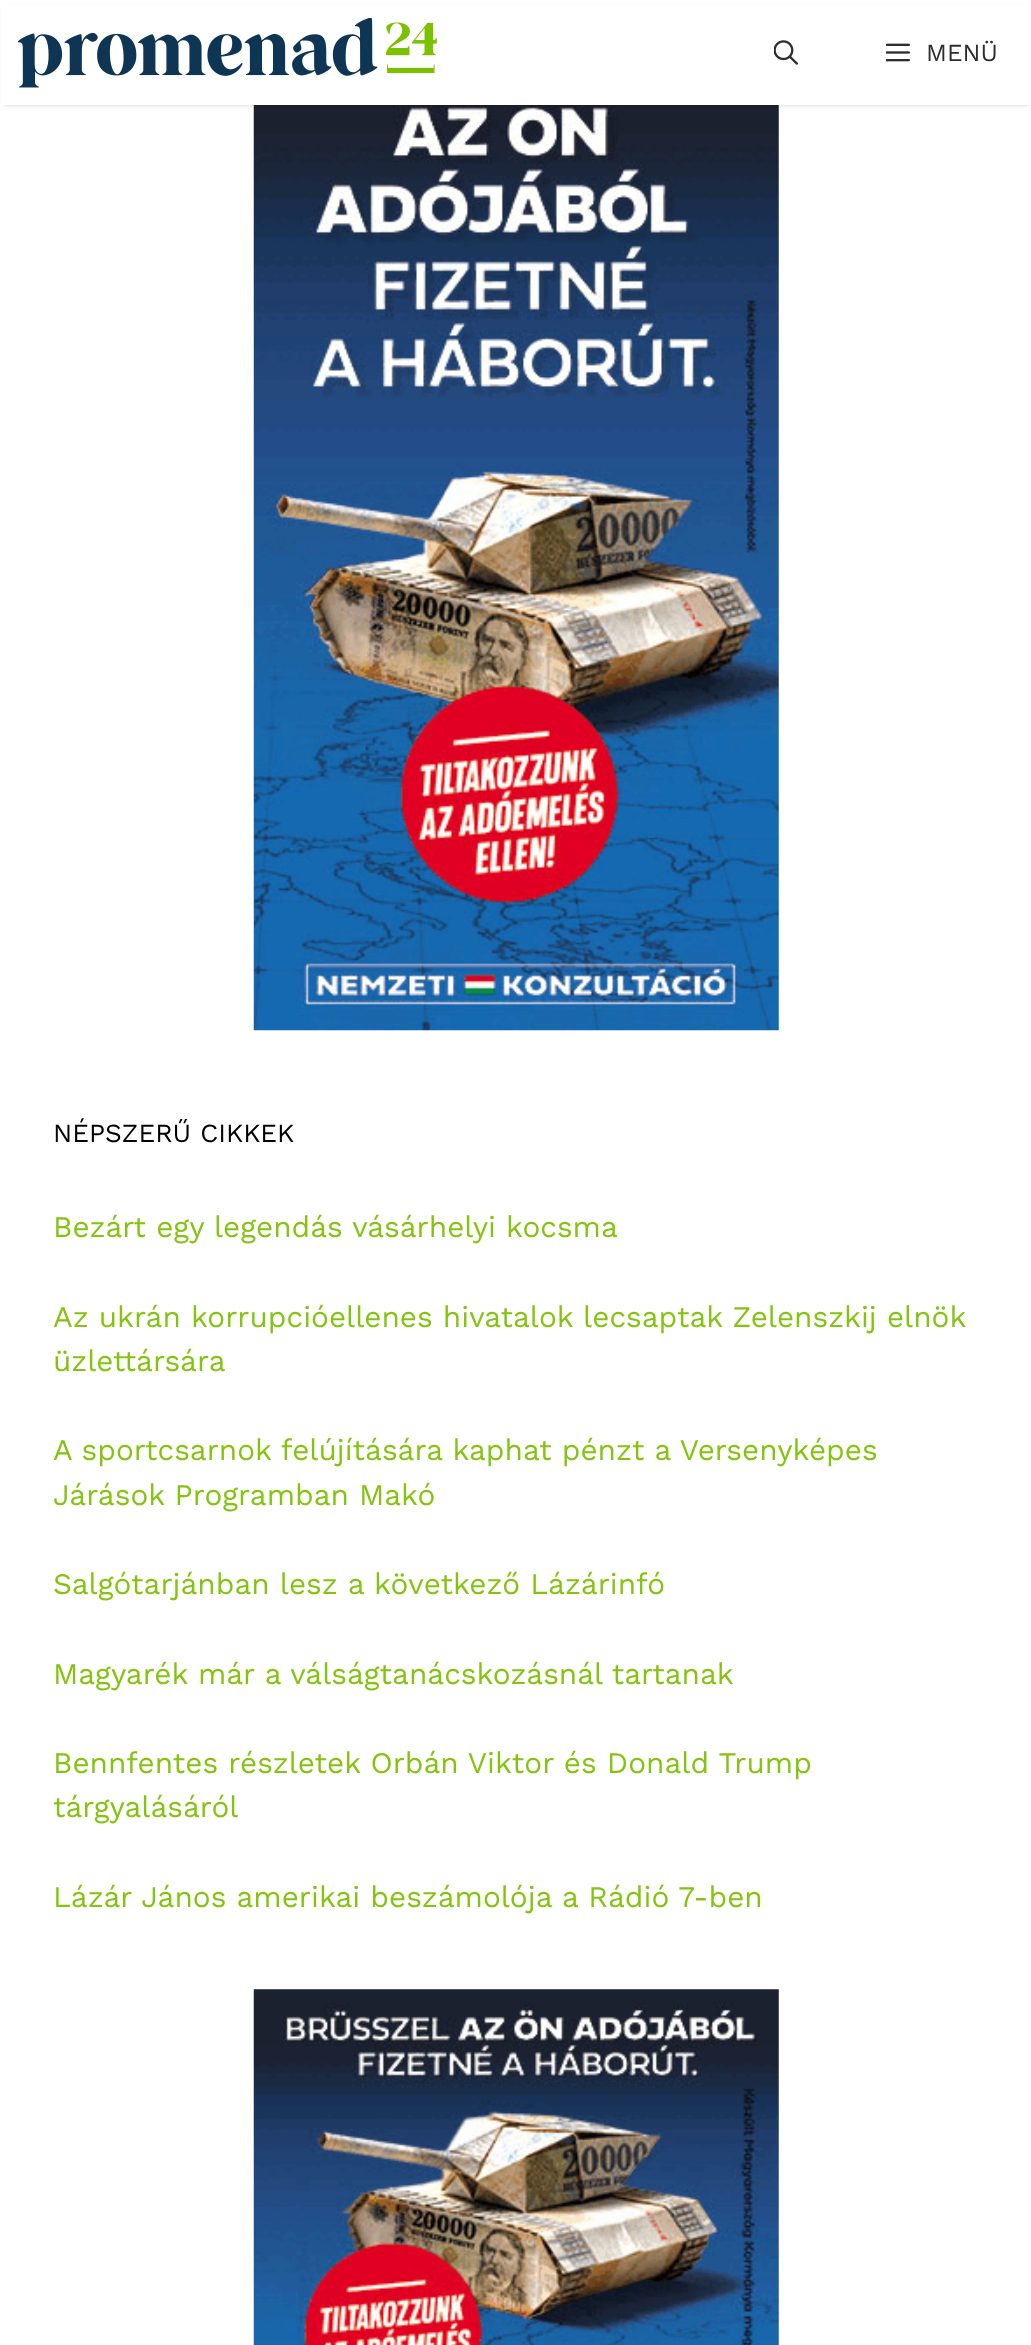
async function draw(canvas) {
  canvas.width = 1031
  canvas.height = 2345
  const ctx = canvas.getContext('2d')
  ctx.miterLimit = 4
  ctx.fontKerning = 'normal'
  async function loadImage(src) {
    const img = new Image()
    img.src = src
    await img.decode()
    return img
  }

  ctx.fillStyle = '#fff'
  ctx.fillRect(0, 0, 1031, 2345)
  ctx.drawImage(await loadImage('image3.png'), 253, 105, 526, 926)
  ctx.fillStyle = '#00000033'
  ctx.filter = 'blur(2px)'
  ctx.beginPath()
  ctx.rect(4, 7, 1025, 98)
  ctx.fill()
  ctx.filter = 'none'
  ctx.fillStyle = '#fff'
  ctx.fillRect(1, 4, 1030, 101)
  ctx.drawImage(await loadImage('image0.png'), 18, 18, 419, 70)
  ctx.drawImage(await loadImage('image1.png'), 774, 40, 24, 25)
  ctx.drawImage(await loadImage('image2.png'), 886, 43, 24, 19)
  ctx.font = '24.5px Work Sans'
  ctx.fillStyle = '#2d2d2d'
  ctx.fillText('MENÜ', 926, 61)
  ctx.font = '26.25px Work Sans'
  ctx.fillStyle = '#000'
  ctx.fillText('NÉPSZERŰ CIKKEK', 53, 1142)
  ctx.font = '29.75px Work Sans'
  ctx.fillStyle = '#84c410'
  ctx.fillText('Bezárt egy legendás vásárhelyi kocsma', 53, 1237)
  ctx.fillText('Az ukrán korrupcióellenes hivatalok lecsaptak Zelenszkij elnök', 53, 1327)
  ctx.fillText('üzlettársára', 53, 1371)
  ctx.fillText('A sportcsarnok felújítására kaphat pénzt a Versenyképes', 53, 1460)
  ctx.fillText('Járások Programban Makó', 53, 1505)
  ctx.fillText('Salgótarjánban lesz a következő Lázárinfó', 53, 1594)
  ctx.fillText('Magyarék már a válságtanácskozásnál tartanak', 53, 1684)
  ctx.fillText('Bennfentes részletek Orbán Viktor és Donald Trump', 53, 1773)
  ctx.fillText('tárgyalásáról', 53, 1817)
  ctx.fillText('Lázár János amerikai beszámolója a Rádió 7-ben', 53, 1907)
  ctx.drawImage(await loadImage('image4.png'), 253, 1989, 526, 356)
}

draw(document.querySelector('canvas'))
